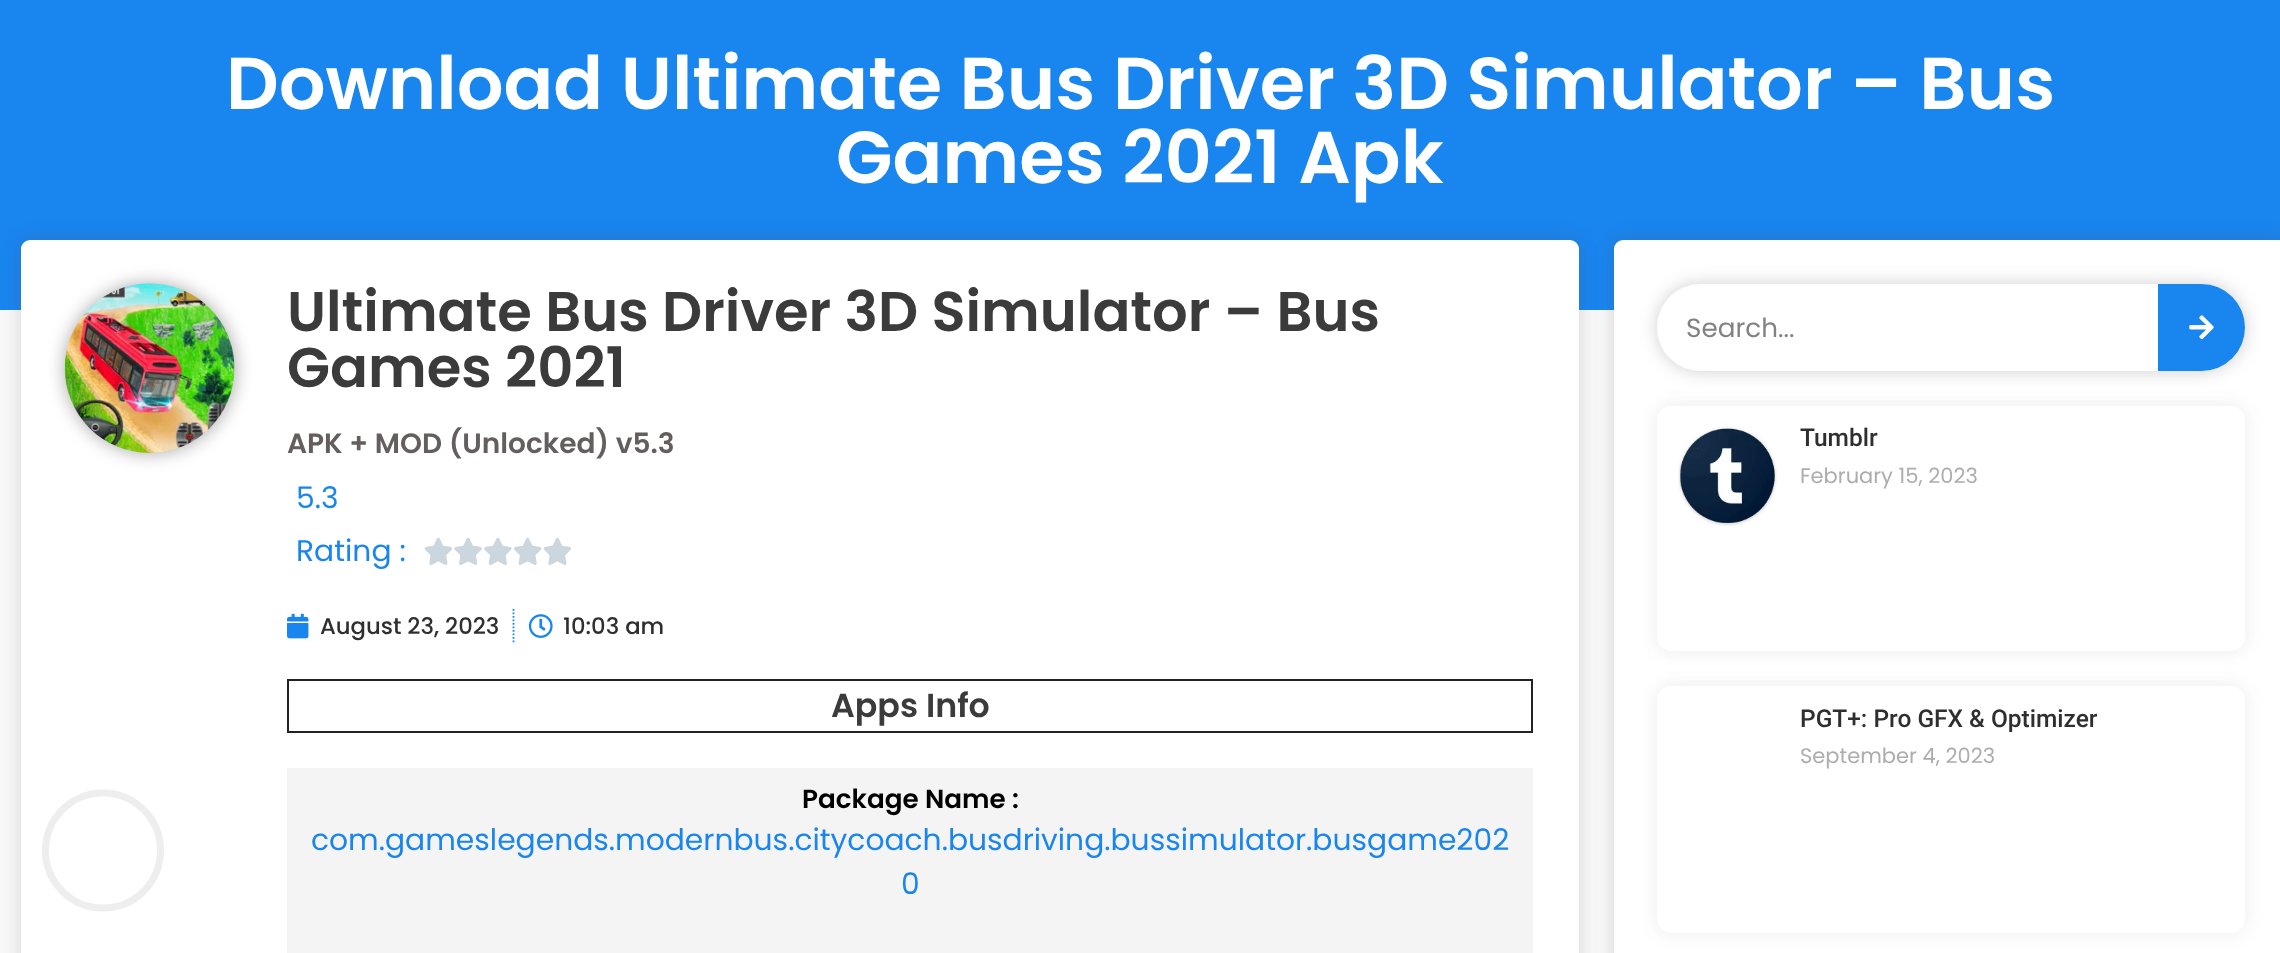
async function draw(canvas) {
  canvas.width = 2280
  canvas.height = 953
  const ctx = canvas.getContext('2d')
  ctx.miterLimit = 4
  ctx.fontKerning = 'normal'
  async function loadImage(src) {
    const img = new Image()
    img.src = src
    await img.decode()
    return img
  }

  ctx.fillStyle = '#f7f8f9'
  ctx.fillRect(0, 0, 2280, 953)
  ctx.fillStyle = '#1985ef'
  ctx.fillRect(0, 0, 2280, 310)
  ctx.font = '600 73.5px Poppins'
  ctx.fillStyle = '#fff'
  ctx.fillText('Download Ultimate Bus Driver 3D Simulator – Bus', 226, 109)
  ctx.fillText('Games 2021 Apk', 836, 183)
  ctx.fillStyle = '#653d3d33'
  ctx.filter = 'blur(9px)'
  ctx.beginPath()
  ctx.roundRect(21, 240, 1558, 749, 9)
  ctx.fill()
  ctx.filter = 'none'
  ctx.fillStyle = '#fff'
  ctx.beginPath()
  ctx.roundRect(21, 240, 1558, 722, 9)
  ctx.fill()
  ctx.beginPath()
  ctx.arc(103, 850.5, 57.5, 0, 2 * Math.PI)
  ctx.strokeStyle = '#eee'
  ctx.lineWidth = 7
  ctx.stroke()
  ctx.fillStyle = '#00000057'
  ctx.filter = 'blur(9px)'
  ctx.beginPath()
  ctx.roundRect(65, 284, 170, 169, 84.5)
  ctx.fill()
  ctx.filter = 'none'
  ctx.drawImage(await loadImage('image0.png'), 64, 283, 171, 170)
  ctx.font = '600 56px Poppins'
  ctx.fillStyle = '#3c3b3b'
  ctx.fillText('Ultimate Bus Driver 3D Simulator – Bus', 287, 331)
  ctx.fillText('Games 2021', 287, 387)
  ctx.font = '600 28px Poppins'
  ctx.fillStyle = '#655e5e'
  ctx.fillText('APK + MOD (Unlocked) v5.3', 287, 453)
  ctx.font = '29.75px Poppins'
  ctx.fillStyle = '#1985ef'
  ctx.fillText('5.3', 296, 508)
  ctx.fillText('Rating :', 296, 561)
  ctx.drawImage(await loadImage('image1.png'), 424, 537, 28, 28)
  ctx.drawImage(await loadImage('image2.png'), 454, 537, 28, 28)
  ctx.drawImage(await loadImage('image3.png'), 484, 537, 28, 28)
  ctx.drawImage(await loadImage('image4.png'), 514, 537, 28, 28)
  ctx.drawImage(await loadImage('image1.png'), 543, 537, 28, 28)
  ctx.drawImage(await loadImage('image5.png'), 287, 613, 22, 26)
  ctx.font = '500 22.75px Poppins'
  ctx.fillStyle = '#2f2f2f'
  ctx.fillText('August 23, 2023', 320, 634)
  ctx.beginPath()
  ctx.moveTo(513.5, 609)
  ctx.lineTo(513.5, 644)
  ctx.strokeStyle = '#1985ef'
  ctx.lineWidth = 1.8
  ctx.setLineDash([1.75, 1.75])
  ctx.stroke()
  ctx.drawImage(await loadImage('image6.png'), 528, 614, 25, 24)
  ctx.fillText('10:03 am', 563, 634)
  ctx.strokeStyle = '#222'
  ctx.lineWidth = 2
  ctx.setLineDash([])
  ctx.strokeRect(288, 680, 1244, 52)
  ctx.font = '600 33.25px Poppins'
  ctx.fillStyle = '#3c3b3b'
  ctx.fillText('Apps Info', 831, 717)
  ctx.fillStyle = '#f4f4f4'
  ctx.fillRect(287, 768, 1246, 185)
  ctx.font = '600 26.25px Poppins'
  ctx.fillStyle = '#000'
  ctx.fillText('Package Name :', 802, 808)
  ctx.font = '29.75px Poppins'
  ctx.fillStyle = '#1985ef'
  ctx.fillText('com.gameslegends.modernbus.citycoach.busdriving.bussimulator.busgame202', 311, 850)
  ctx.fillText('0', 901, 894)
  ctx.fillStyle = '#653d3d33'
  ctx.filter = 'blur(9px)'
  ctx.beginPath()
  ctx.roundRect(1614, 240, 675, 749, 9)
  ctx.fill()
  ctx.filter = 'none'
  ctx.fillStyle = '#fff'
  ctx.beginPath()
  ctx.roundRect(1614, 240, 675, 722, 9)
  ctx.fill()
  ctx.fillStyle = '#00000030'
  ctx.filter = 'blur(9px)'
  ctx.beginPath()
  ctx.roundRect(1657, 284, 588, 87, 43.5)
  ctx.fill()
  ctx.filter = 'none'
  ctx.fillStyle = '#fff'
  ctx.beginPath()
  ctx.roundRect(1657, 284, 588, 87, 43.5)
  ctx.fill()
  ctx.font = '26.25px Poppins'
  ctx.fillStyle = '#828282'
  ctx.fillText('Search...', 1686, 337)
  ctx.fillStyle = '#1985ef'
  ctx.beginPath()
  ctx.roundRect(2158, 284, 87, 87, [0, 43.5, 43.5, 0])
  ctx.fill()
  ctx.drawImage(await loadImage('image7.png'), 2189, 315, 25, 25)
  ctx.save()
  ctx.beginPath()
  ctx.moveTo(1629, 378)
  ctx.lineTo(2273, 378)
  ctx.lineTo(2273, 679)
  ctx.lineTo(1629, 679)
  ctx.closePath()
  ctx.moveTo(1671, 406)
  ctx.lineTo(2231, 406)
  ctx.bezierCurveTo(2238.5, 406, 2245, 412.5, 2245, 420)
  ctx.lineTo(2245, 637)
  ctx.bezierCurveTo(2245, 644.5, 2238.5, 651, 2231, 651)
  ctx.lineTo(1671, 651)
  ctx.bezierCurveTo(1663.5, 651, 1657, 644.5, 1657, 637)
  ctx.lineTo(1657, 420)
  ctx.bezierCurveTo(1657, 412.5, 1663.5, 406, 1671, 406)
  ctx.closePath()
  ctx.clip('evenodd')
  ctx.fillStyle = '#653d3d1c'
  ctx.filter = 'blur(9px)'
  ctx.beginPath()
  ctx.roundRect(1657, 406, 588, 245, 14)
  ctx.fill()
  ctx.filter = 'none'
  ctx.restore()
  ctx.drawImage(await loadImage('image8.png'), 1678, 427, 99, 99)
  ctx.font = '500 24.5px Roboto'
  ctx.fillStyle = '#2f2f2f'
  ctx.fillText('Tumblr', 1800, 446)
  ctx.font = '21px Poppins'
  ctx.fillStyle = '#adadad'
  ctx.fillText('February 15, 2023', 1800, 483)
  ctx.save()
  ctx.beginPath()
  ctx.moveTo(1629, 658)
  ctx.lineTo(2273, 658)
  ctx.lineTo(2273, 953)
  ctx.lineTo(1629, 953)
  ctx.closePath()
  ctx.moveTo(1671, 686)
  ctx.lineTo(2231, 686)
  ctx.bezierCurveTo(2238.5, 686, 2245, 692.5, 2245, 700)
  ctx.lineTo(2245, 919)
  ctx.bezierCurveTo(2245, 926.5, 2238.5, 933, 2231, 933)
  ctx.lineTo(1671, 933)
  ctx.bezierCurveTo(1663.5, 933, 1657, 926.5, 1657, 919)
  ctx.lineTo(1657, 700)
  ctx.bezierCurveTo(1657, 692.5, 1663.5, 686, 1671, 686)
  ctx.closePath()
  ctx.clip('evenodd')
  ctx.fillStyle = '#653d3d1c'
  ctx.filter = 'blur(9px)'
  ctx.beginPath()
  ctx.roundRect(1657, 686, 588, 247, 14)
  ctx.fill()
  ctx.filter = 'none'
  ctx.restore()
  ctx.font = '500 24.5px Roboto'
  ctx.fillStyle = '#2f2f2f'
  ctx.fillText('PGT+: Pro GFX & Optimizer', 1800, 727)
  ctx.font = '21px Poppins'
  ctx.fillStyle = '#adadad'
  ctx.fillText('September 4, 2023', 1800, 763)
}

draw(document.querySelector('canvas'))
